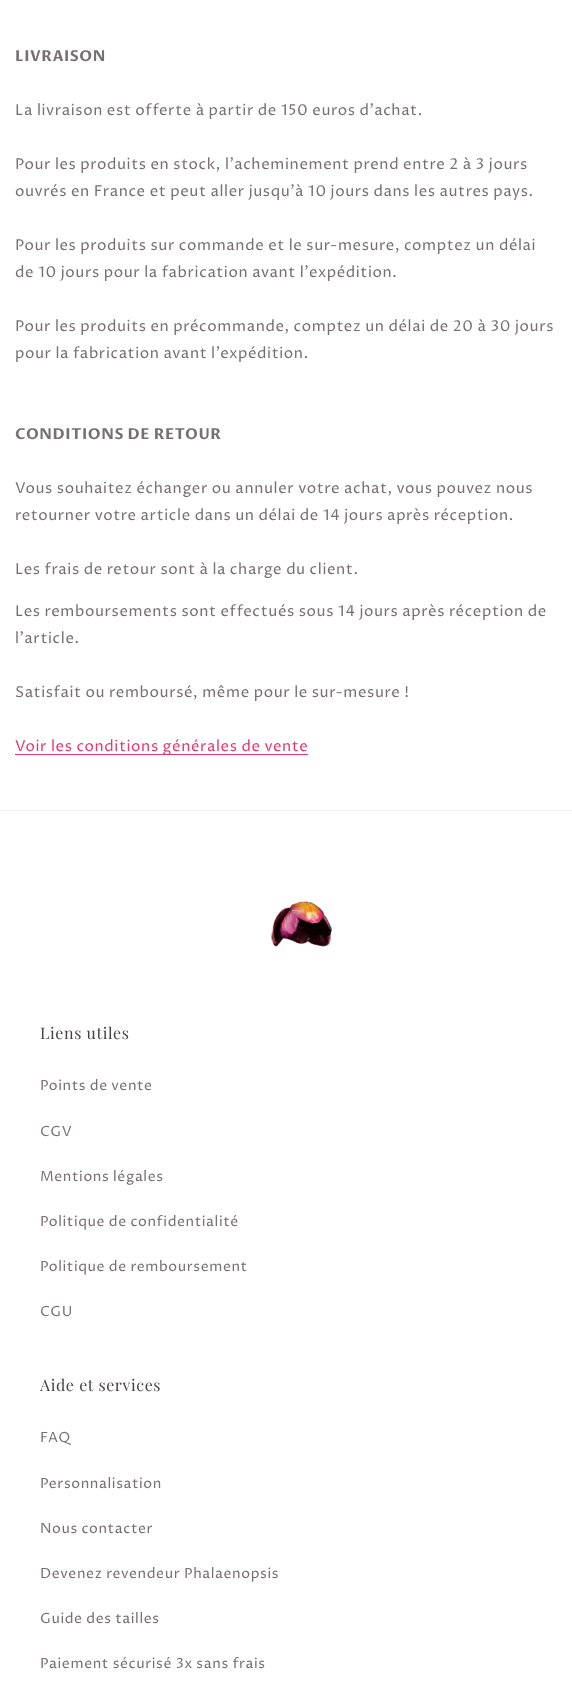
async function draw(canvas) {
  canvas.width = 572
  canvas.height = 1698
  const ctx = canvas.getContext('2d')
  ctx.miterLimit = 4
  ctx.fontKerning = 'normal'
  async function loadImage(src) {
    const img = new Image()
    img.src = src
    await img.decode()
    return img
  }

  ctx.fillStyle = '#fff'
  ctx.fillRect(0, 0, 572, 1698)
  ctx.letterSpacing = '0.6px'
  ctx.font = 'bold 15px Proza Libre'
  ctx.fillStyle = '#776f71'
  ctx.fillText('LIVRAISON', 15, 61)
  ctx.font = '15px Proza Libre'
  ctx.fillText('La livraison est offerte à partir de 150 euros d\'achat.', 15, 115)
  ctx.fillText('Pour les produits en stock, l\'acheminement prend entre 2 à 3 jours', 15, 169)
  ctx.fillText('ouvrés en France et peut aller jusqu\'à 10 jours dans les autres pays.', 15, 196)
  ctx.fillText('Pour les produits sur commande et le sur-mesure, comptez un délai', 15, 250)
  ctx.fillText('de 10 jours pour la fabrication avant l\'expédition.', 15, 277)
  ctx.fillText('Pour les produits en précommande, comptez un délai de 20 à 30 jours', 15, 331)
  ctx.fillText('pour la fabrication avant l\'expédition.', 15, 358)
  ctx.font = 'bold 15px Proza Libre'
  ctx.fillText('CONDITIONS DE RETOUR', 15, 439)
  ctx.font = '15px Proza Libre'
  ctx.fillText('Vous souhaitez échanger ou annuler votre achat, vous pouvez nous', 15, 493)
  ctx.fillText('retourner votre article dans un délai de 14 jours après réception.', 15, 520)
  ctx.fillText('Les frais de retour sont à la charge du client.', 15, 574)
  ctx.fillText('Les remboursements sont effectués sous 14 jours après réception de', 15, 616)
  ctx.fillText('l\'article.', 15, 643)
  ctx.fillText('Satisfait ou remboursé, même pour le sur-mesure !', 15, 697)
  ctx.fillStyle = '#e6396f'
  ctx.fillRect(15, 754, 293, 1)
  ctx.fillStyle = '#e5396e'
  ctx.fillText('Voir les conditions générales de vente', 15, 751)
  ctx.fillStyle = '#f0f0f0'
  ctx.fillRect(0, 810, 572, 1)
  ctx.drawImage(await loadImage('image0.png'), 271, 901, 61, 46)
  ctx.font = '16px Playfair Display'
  ctx.fillStyle = '#493f42'
  ctx.fillText('Liens utiles', 40, 1039)
  ctx.font = '14px Proza Libre'
  ctx.fillStyle = '#776f71'
  ctx.fillText('Points de vente', 40, 1090)
  ctx.fillText('CGV', 40, 1136)
  ctx.fillText('Mentions légales', 40, 1181)
  ctx.fillText('Politique de confidentialité', 40, 1226)
  ctx.fillText('Politique de remboursement', 40, 1271)
  ctx.fillText('CGU', 40, 1316)
  ctx.font = '16px Playfair Display'
  ctx.fillStyle = '#493f42'
  ctx.fillText('Aide et services', 40, 1391)
  ctx.font = '14px Proza Libre'
  ctx.fillStyle = '#776f71'
  ctx.fillText('FAQ', 40, 1442)
  ctx.fillText('Personnalisation', 40, 1488)
  ctx.fillText('Nous contacter', 40, 1533)
  ctx.fillText('Devenez revendeur Phalaenopsis', 40, 1578)
  ctx.fillText('Guide des tailles', 40, 1623)
  ctx.fillText('Paiement sécurisé 3x sans frais', 40, 1668)
}

draw(document.querySelector('canvas'))
